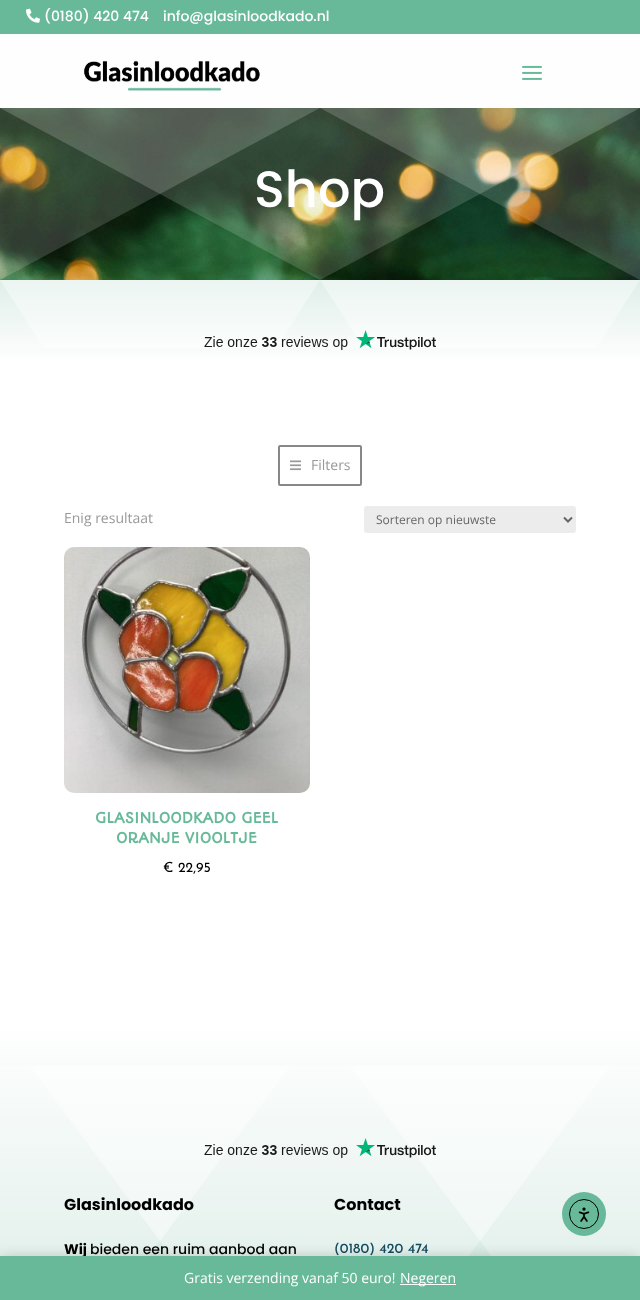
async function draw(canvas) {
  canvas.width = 640
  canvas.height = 1300
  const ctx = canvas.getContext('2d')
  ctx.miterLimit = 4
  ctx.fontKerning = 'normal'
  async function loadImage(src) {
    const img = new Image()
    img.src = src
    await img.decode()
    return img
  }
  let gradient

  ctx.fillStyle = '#67b99a'
  ctx.fillRect(0, 0, 640, 1300)
  ctx.drawImage(await loadImage('image0.png'), 26, 8, 14, 15)
  ctx.font = '500 14px Poppins'
  ctx.fillStyle = '#fff'
  ctx.fillText('(0180) 420 474', 44, 21)
  ctx.fillText('info@glasinloodkado.nl', 163, 21)
  ctx.fillStyle = '#fefefe'
  ctx.fillRect(0, 34, 640, 74)
  ctx.drawImage(await loadImage('image1.png'), 84, 60, 176, 31)
  ctx.drawImage(await loadImage('image2.png'), 522, 65, 20, 15)
  ctx.drawImage(await loadImage('image4.png'), 0, 108, 640, 172)
  ctx.font = '500 51px Poppins'
  ctx.fillStyle = '#fff'
  ctx.fillText('Shop', 254, 207)
  ctx.drawImage(await loadImage('image3.png'), 0, 108, 640, 172)
  gradient = ctx.createLinearGradient(320, 280, 320, 1026)
  gradient.addColorStop(0, '#d3e8e0')
  gradient.addColorStop(0.11, '#fff')
  ctx.fillStyle = gradient
  ctx.fillRect(0, 280, 640, 746)
  ctx.drawImage(await loadImage('image5.png'), 0, 280, 640, 68)
  ctx.drawImage(await loadImage('image6.png'), 204, 330, 232, 20)
  ctx.beginPath()
  ctx.roundRect(279, 446, 82, 39, 1)
  ctx.strokeStyle = '#888'
  ctx.lineWidth = 2
  ctx.stroke()
  ctx.drawImage(await loadImage('image7.png'), 290, 460, 11, 11)
  ctx.font = '14px Open Sans'
  ctx.fillStyle = '#999'
  ctx.fillText('Filters', 311, 470)
  ctx.fillText('Enig resultaat', 64, 523)
  ctx.fillStyle = '#ececec'
  ctx.beginPath()
  ctx.roundRect(364, 506, 212, 27, 3)
  ctx.fill()
  ctx.beginPath()
  ctx.moveTo(564, 517.5)
  ctx.lineTo(568, 521.5)
  ctx.lineTo(572, 517.5)
  ctx.strokeStyle = '#666'
  ctx.stroke()
  ctx.font = '12px Open Sans'
  ctx.fillStyle = '#666'
  ctx.fillText('Sorteren op nieuwste', 376, 524)
  ctx.drawImage(await loadImage('image8.png'), 64, 547, 246, 246)
  ctx.font = 'bold 14px Autour One'
  ctx.fillStyle = '#67b99a'
  ctx.fillText('GLASINLOODKADO GEEL', 95, 823)
  ctx.fillText('ORANJE VIOOLTJE', 116, 843)
  ctx.font = '100 14px Josefin Sans'
  ctx.fillStyle = '#000'
  ctx.fillText('€ 22,95', 163, 872)
  gradient = ctx.createLinearGradient(320, 1026, 320, 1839)
  gradient.addColorStop(0, '#fff')
  gradient.addColorStop(1, '#7cbaa2')
  ctx.fillStyle = gradient
  ctx.fillRect(0, 1026, 640, 230)
  ctx.drawImage(await loadImage('image9.png'), 0, 1066, 640, 190)
  ctx.drawImage(await loadImage('image10.png'), 204, 1138, 232, 20)
  ctx.font = 'bold 16px Poppins'
  ctx.fillStyle = '#000'
  ctx.fillText('Glasinloodkado', 64, 1210)
  ctx.font = 'bold 14px Poppins'
  ctx.fillText('Wij', 64, 1254)
  ctx.font = '500 14px Poppins'
  ctx.fillText('bieden een ruim aanbod aan', 90, 1254)
  ctx.font = 'bold 16px Poppins'
  ctx.fillText('Contact', 334, 1210)
  ctx.font = '100 14px "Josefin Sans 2"'
  ctx.fillStyle = '#134c5f'
  ctx.fillText('(0180) 420 474', 334, 1253)
  ctx.fillStyle = '#00000033'
  ctx.filter = 'blur(7px)'
  ctx.beginPath()
  ctx.rect(0, 1257, 640, 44)
  ctx.fill()
  ctx.filter = 'none'
  ctx.fillStyle = '#67b99a'
  ctx.beginPath()
  ctx.arc(584, 1214, 22, 0, 2 * Math.PI)
  ctx.fill()
  ctx.beginPath()
  ctx.arc(584, 1214, 14.5, 0, 2 * Math.PI)
  ctx.strokeStyle = '#000'
  ctx.lineWidth = 1
  ctx.stroke()
  ctx.drawImage(await loadImage('image11.png'), 578, 1207, 12, 15)
  ctx.fillRect(0, 1256, 640, 44)
  ctx.font = '14px Open Sans'
  ctx.fillStyle = '#fff'
  ctx.fillText('Gratis verzending vanaf 50 euro!', 184, 1283)
  ctx.fillStyle = '#fcfbfe'
  ctx.fillRect(400, 1284, 56, 1)
  ctx.fillStyle = '#fff'
  ctx.fillText('Negeren', 400, 1283)
}

draw(document.querySelector('canvas'))
